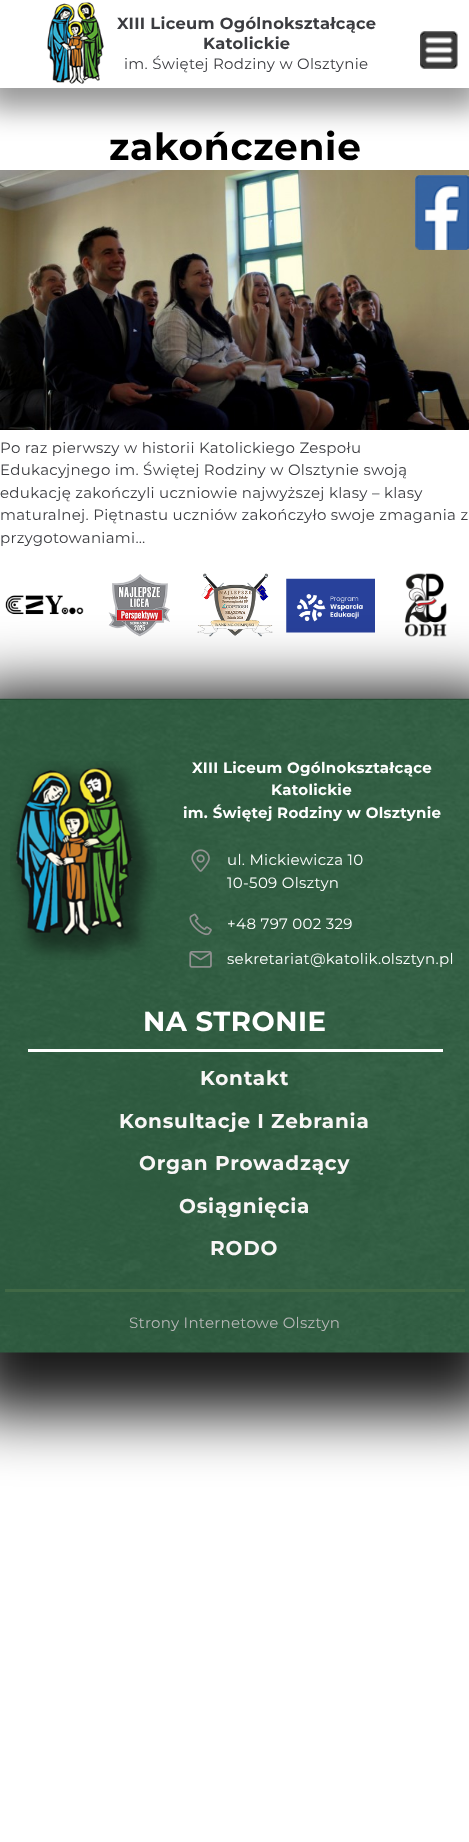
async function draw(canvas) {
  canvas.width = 469
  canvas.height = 1842
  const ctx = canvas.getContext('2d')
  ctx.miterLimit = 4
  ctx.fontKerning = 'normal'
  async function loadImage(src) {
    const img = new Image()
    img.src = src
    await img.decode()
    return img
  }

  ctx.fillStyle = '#fff'
  ctx.fillRect(0, 0, 469, 1842)
  ctx.fillStyle = '#00000066'
  ctx.filter = 'blur(14.5px)'
  ctx.beginPath()
  ctx.rect(-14, -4, 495, 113)
  ctx.fill()
  ctx.filter = 'none'
  ctx.fillStyle = '#fff'
  ctx.fillRect(0, 0, 469, 88)
  ctx.drawImage(await loadImage('image0.png'), 47, 2, 57, 82)
  ctx.letterSpacing = '0.3px'
  ctx.font = 'bold 16.25px Montserrat'
  ctx.fillStyle = '#3b3c40'
  ctx.fillText('XIII Liceum Ogólnokształcące', 117, 29)
  ctx.fillText('Katolickie', 203, 49)
  ctx.font = '15px Montserrat'
  ctx.fillText('im. Świętej Rodziny w Olsztynie', 124, 69)
  ctx.drawImage(await loadImage('image1.png'), 420, 31, 38, 38)
  ctx.letterSpacing = '0.75px'
  ctx.font = 'bold 37.5px Montserrat'
  ctx.fillStyle = '#000'
  ctx.fillText('zakończenie', 109, 160)
  ctx.drawImage(await loadImage('image2.png'), 0, 170, 469, 260)
  ctx.letterSpacing = '0.3px'
  ctx.font = '15px Montserrat'
  ctx.fillStyle = '#3b3c40'
  ctx.fillText('Po raz pierwszy w historii Katolickiego Zespołu', 0, 453)
  ctx.fillText('Edukacyjnego im. Świętej Rodziny w Olsztynie swoją', 0, 475)
  ctx.fillText('edukację zakończyli uczniowie najwyższej klasy – klasy', 0, 498)
  ctx.fillText('maturalnej. Piętnastu uczniów zakończyło swoje zmagania z', 0, 520)
  ctx.fillText('przygotowaniami…', 0, 543)
  ctx.drawImage(await loadImage('image3.png'), 5, 595, 79, 20)
  ctx.drawImage(await loadImage('image4.png'), 108, 574, 62, 63)
  ctx.drawImage(await loadImage('image5.png'), 197, 573, 76, 64)
  ctx.drawImage(await loadImage('image6.png'), 286, 578, 89, 55)
  ctx.drawImage(await loadImage('image7.png'), 405, 573, 42, 64)
  ctx.fillStyle = '#000000e6'
  ctx.filter = 'blur(31px)'
  ctx.beginPath()
  ctx.rect(-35, 689, 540, 724)
  ctx.fill()
  ctx.filter = 'none'
  ctx.drawImage(await loadImage('image8.png'), 0, 698, 469, 655)
  ctx.fillStyle = '#00000033'
  ctx.fillRect(0, 699, 469, 1)
  ctx.drawImage(await loadImage('image9.png'), 10, 761, 147, 199)
  ctx.font = 'bold 15px Montserrat'
  ctx.fillStyle = '#fff'
  ctx.fillText('XIII Liceum Ogólnokształcące', 192, 773)
  ctx.fillText('Katolickie', 271, 795)
  ctx.fillText('im. Świętej Rodziny w Olsztynie', 183, 818)
  ctx.drawImage(await loadImage('image10.png'), 191, 849, 19, 23)
  ctx.font = '15px Montserrat'
  ctx.fillText('ul. Mickiewicza 10', 227, 865)
  ctx.fillText('10-509 Olsztyn', 227, 888)
  ctx.drawImage(await loadImage('image11.png'), 189, 913, 23, 23)
  ctx.fillText('+48 797 002 329', 227, 929)
  ctx.drawImage(await loadImage('image12.png'), 189, 951, 23, 17)
  ctx.fillText('sekretariat@katolik.olsztyn.pl', 227, 964)
  ctx.fillRect(28, 1049, 415, 3)
  ctx.letterSpacing = '0.5px'
  ctx.font = 'bold 27.5px Montserrat'
  ctx.fillText('NA STRONIE', 143, 1031)
  ctx.letterSpacing = '0.8px'
  ctx.font = 'bold 20px Montserrat'
  ctx.fillStyle = '#f9f6f6'
  ctx.fillText('Kontakt', 200, 1085)
  ctx.fillText('Konsultacje I Zebrania', 119, 1128)
  ctx.fillText('Organ Prowadzący', 139, 1170)
  ctx.fillText('Osiągnięcia', 179, 1213)
  ctx.fillText('RODO', 210, 1255)
  ctx.fillStyle = '#406845'
  ctx.fillRect(5, 1289, 460, 3)
  ctx.letterSpacing = '0.3px'
  ctx.font = '15px Montserrat'
  ctx.fillStyle = '#b7b7b7'
  ctx.fillText('Strony Internetowe Olsztyn', 129, 1328)
  ctx.drawImage(await loadImage('image13.png'), 415, 175, 54, 75)
}

draw(document.querySelector('canvas'))
